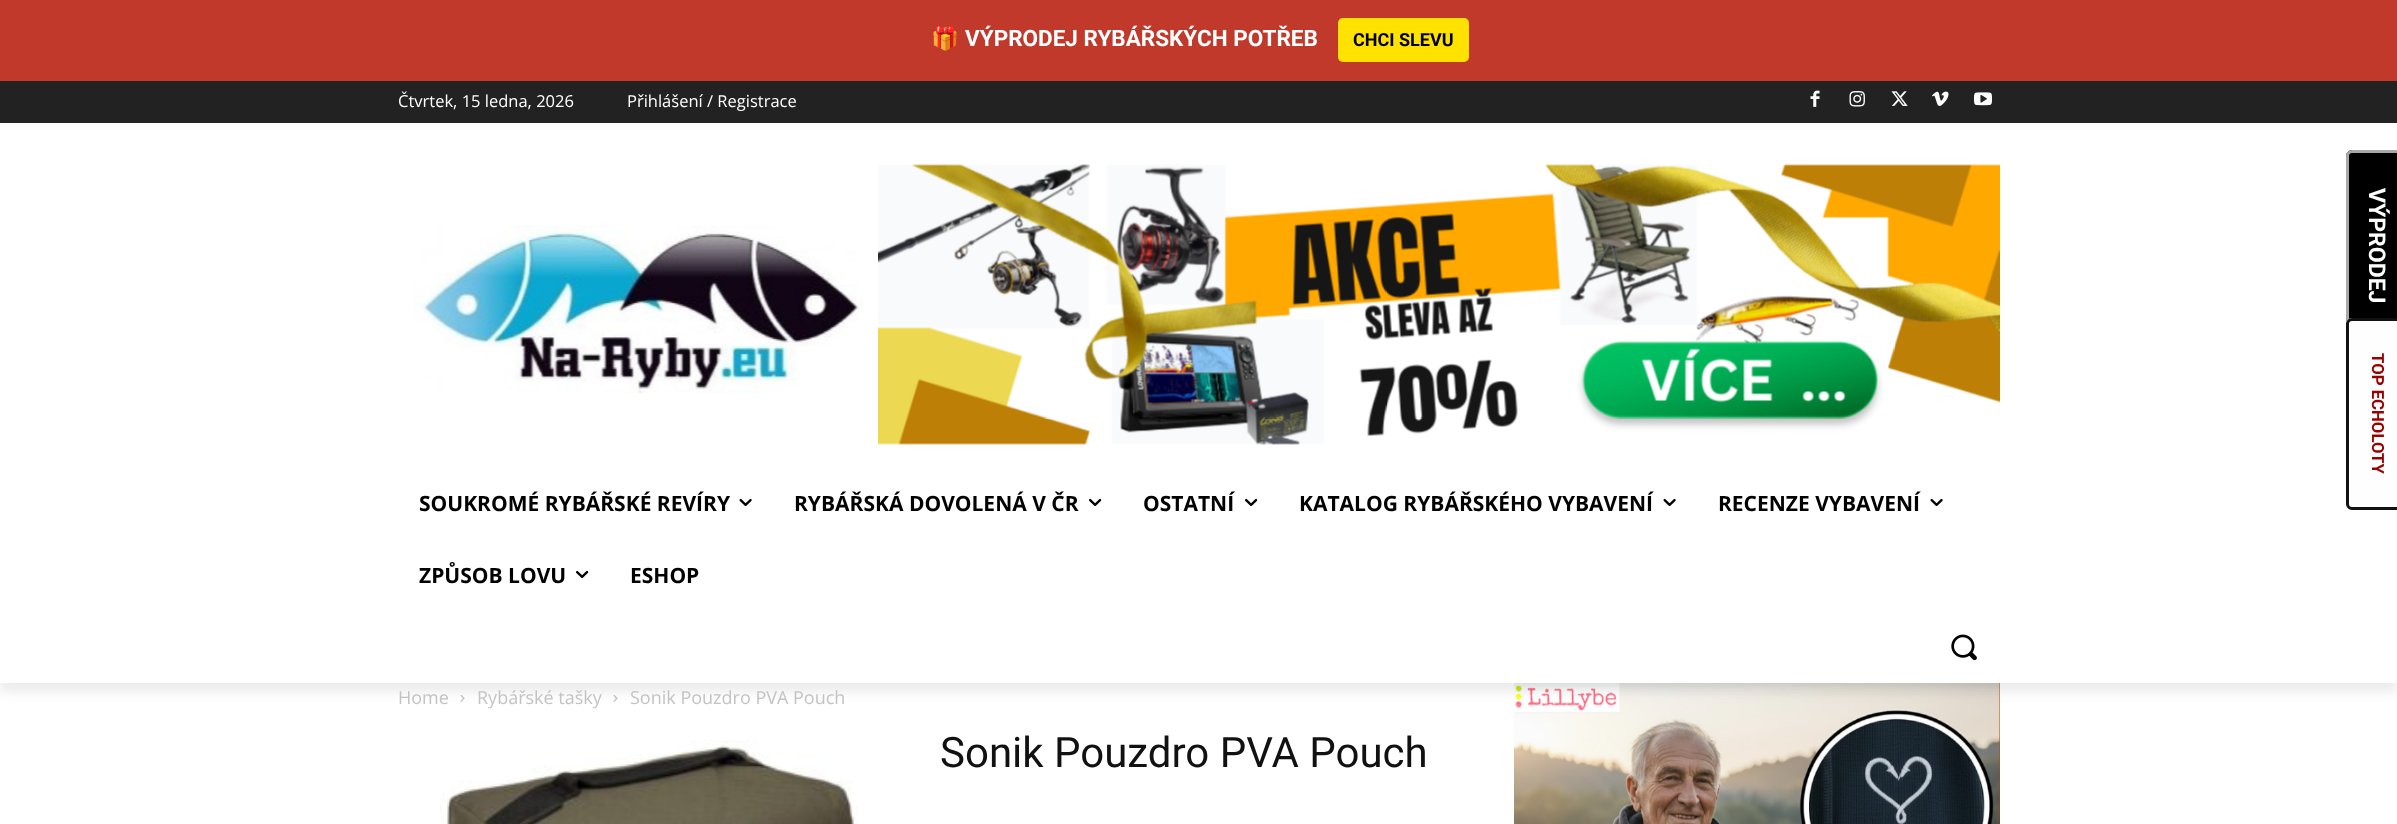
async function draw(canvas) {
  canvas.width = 2397
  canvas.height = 824
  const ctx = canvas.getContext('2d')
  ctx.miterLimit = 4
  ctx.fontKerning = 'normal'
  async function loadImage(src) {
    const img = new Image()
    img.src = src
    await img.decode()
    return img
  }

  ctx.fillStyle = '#fff'
  ctx.fillRect(0, 0, 2397, 824)
  ctx.fillStyle = '#222'
  ctx.fillRect(0, 81, 2397, 42)
  ctx.drawImage(await loadImage('image0.png'), 1810, 90, 10, 17)
  ctx.drawImage(await loadImage('image1.png'), 1849, 91, 16, 16)
  ctx.drawImage(await loadImage('image2.png'), 1891, 91, 17, 15)
  ctx.drawImage(await loadImage('image3.png'), 1932, 91, 17, 15)
  ctx.drawImage(await loadImage('image4.png'), 1974, 92, 18, 14)
  ctx.drawImage(await loadImage('image5.png'), 413, 225, 449, 168)
  ctx.drawImage(await loadImage('image6.png'), 878, 164, 1122, 281)
  ctx.drawImage(await loadImage('image10.png'), 460, 695, 5, 7)
  ctx.drawImage(await loadImage('image10.png'), 613, 695, 5, 7)
  ctx.drawImage(await loadImage('image12.png'), 1514, 683, 486, 141)
  ctx.save()
  ctx.beginPath()
  ctx.moveTo(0, 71)
  ctx.lineTo(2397, 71)
  ctx.lineTo(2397, 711)
  ctx.lineTo(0, 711)
  ctx.closePath()
  ctx.moveTo(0, 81)
  ctx.lineTo(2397, 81)
  ctx.lineTo(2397, 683)
  ctx.lineTo(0, 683)
  ctx.closePath()
  ctx.clip('evenodd')
  ctx.fillStyle = '#00000014'
  ctx.filter = 'blur(6px)'
  ctx.beginPath()
  ctx.rect(0, 90, 2397, 602)
  ctx.fill()
  ctx.filter = 'none'
  ctx.restore()
  ctx.fillStyle = '#c0392b'
  ctx.fillRect(0, 0, 2397, 81)
  ctx.font = 'bold 22.5px Noto Color Emoji'
  ctx.fillStyle = '#fff'
  ctx.fillText('🎁', 931, 46)
  ctx.font = 'bold 22.5px Roboto'
  ctx.fillText('VÝPRODEJ RYBÁŘSKÝCH POTŘEB', 965, 46)
  ctx.fillStyle = '#ffe200'
  ctx.beginPath()
  ctx.roundRect(1338, 18, 131, 44, 5)
  ctx.fill()
  ctx.font = 'bold 18px Roboto'
  ctx.fillStyle = '#000'
  ctx.fillText('CHCI SLEVU', 1353, 46)
  ctx.font = '16.5px Open Sans'
  ctx.fillStyle = '#fff'
  ctx.fillText('Čtvrtek, 15 ledna, 2026', 398, 107)
  ctx.fillText('Přihlášení / Registrace', 627, 107)
  ctx.font = 'bold 21px Open Sans'
  ctx.fillStyle = '#000'
  ctx.fillText('SOUKROMÉ RYBÁŘSKÉ REVÍRY', 419, 511)
  ctx.drawImage(await loadImage('image7.png'), 739, 498, 13, 8)
  ctx.fillText('RYBÁŘSKÁ DOVOLENÁ V ČR', 794, 511)
  ctx.drawImage(await loadImage('image8.png'), 1089, 498, 13, 8)
  ctx.fillText('OSTATNÍ', 1143, 511)
  ctx.drawImage(await loadImage('image8.png'), 1245, 498, 13, 8)
  ctx.fillText('KATALOG RYBÁŘSKÉHO VYBAVENÍ', 1299, 511)
  ctx.drawImage(await loadImage('image7.png'), 1663, 498, 13, 8)
  ctx.fillText('RECENZE VYBAVENÍ', 1718, 511)
  ctx.drawImage(await loadImage('image7.png'), 1930, 498, 13, 8)
  ctx.fillText('ZPŮSOB LOVU', 419, 583)
  ctx.drawImage(await loadImage('image8.png'), 576, 570, 13, 8)
  ctx.fillText('ESHOP', 630, 583)
  ctx.drawImage(await loadImage('image9.png'), 1951, 634, 26, 27)
  ctx.font = '18px Open Sans'
  ctx.fillStyle = '#c3c3c3'
  ctx.fillText('Home', 398, 704)
  ctx.fillText('Rybářské tašky', 477, 704)
  ctx.fillText('Sonik Pouzdro PVA Pouch', 630, 704)
  ctx.drawImage(await loadImage('image11.png'), 440, 740, 418, 84)
  ctx.font = '42px Roboto'
  ctx.fillStyle = '#111'
  ctx.fillText('Sonik Pouzdro PVA Pouch', 940, 767)
  ctx.fillStyle = '#000'
  ctx.beginPath()
  ctx.moveTo(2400, 150)
  ctx.lineTo(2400, 342)
  ctx.lineTo(2352, 342)
  ctx.bezierCurveTo(2349, 342, 2346, 339, 2346, 336)
  ctx.lineTo(2346, 156)
  ctx.bezierCurveTo(2346, 153, 2349, 150, 2352, 150)
  ctx.closePath()
  ctx.fill()
  ctx.fillStyle = '#a8a8a8'
  ctx.beginPath()
  ctx.moveTo(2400, 150)
  ctx.lineTo(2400, 342)
  ctx.lineTo(2352, 342)
  ctx.bezierCurveTo(2349, 342, 2346, 339, 2346, 336)
  ctx.lineTo(2346, 156)
  ctx.bezierCurveTo(2346, 153, 2349, 150, 2352, 150)
  ctx.closePath()
  ctx.moveTo(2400, 153)
  ctx.lineTo(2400, 339)
  ctx.lineTo(2352, 339)
  ctx.bezierCurveTo(2350, 339, 2349, 338, 2349, 336)
  ctx.lineTo(2349, 156)
  ctx.bezierCurveTo(2349, 154, 2350, 153, 2352, 153)
  ctx.closePath()
  ctx.fill('evenodd')
  ctx.font = 'bold 23px Roboto'
  ctx.fillStyle = '#fff'
  ctx.save()
  ctx.translate(2369, 188)
  ctx.rotate(90 * Math.PI / 180)
  ctx.fillText('VÝPRODEJ', 0, 0)
  ctx.restore()
  ctx.fillStyle = '#fefefe'
  ctx.beginPath()
  ctx.moveTo(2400, 318)
  ctx.lineTo(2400, 510)
  ctx.lineTo(2352, 510)
  ctx.bezierCurveTo(2349, 510, 2346, 507, 2346, 504)
  ctx.lineTo(2346, 324)
  ctx.bezierCurveTo(2346, 321, 2349, 318, 2352, 318)
  ctx.closePath()
  ctx.fill()
  ctx.fillStyle = '#111'
  ctx.beginPath()
  ctx.moveTo(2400, 318)
  ctx.lineTo(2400, 510)
  ctx.lineTo(2352, 510)
  ctx.bezierCurveTo(2349, 510, 2346, 507, 2346, 504)
  ctx.lineTo(2346, 324)
  ctx.bezierCurveTo(2346, 321, 2349, 318, 2352, 318)
  ctx.closePath()
  ctx.moveTo(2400, 321)
  ctx.lineTo(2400, 507)
  ctx.lineTo(2352, 507)
  ctx.bezierCurveTo(2350, 507, 2349, 506, 2349, 504)
  ctx.lineTo(2349, 324)
  ctx.bezierCurveTo(2349, 322, 2350, 321, 2352, 321)
  ctx.closePath()
  ctx.fill('evenodd')
  ctx.font = 'bold 16.75px Roboto'
  ctx.fillStyle = '#900'
  ctx.save()
  ctx.translate(2372, 353)
  ctx.rotate(90 * Math.PI / 180)
  ctx.fillText('TOP ECHOLOTY', 0, 0)
  ctx.restore()
}

draw(document.querySelector('canvas'))
